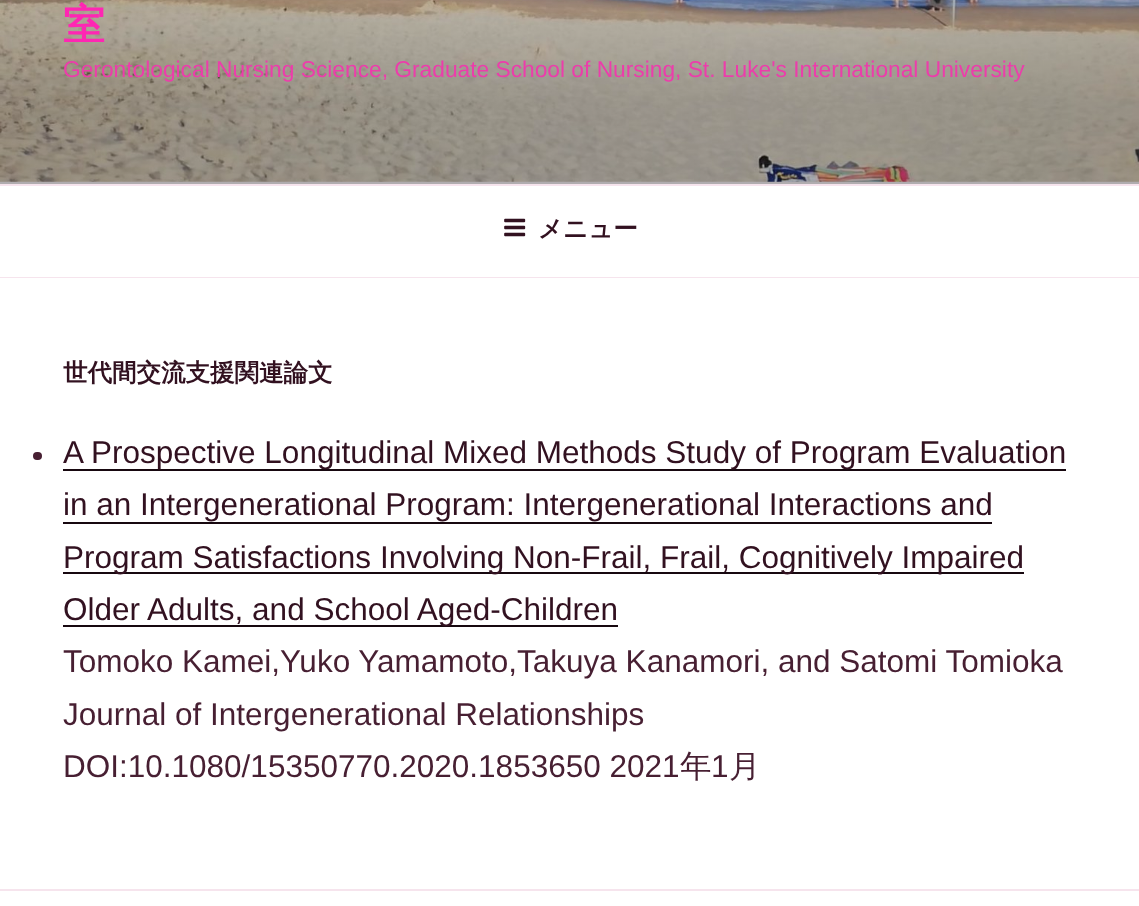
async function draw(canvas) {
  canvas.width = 1139
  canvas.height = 906
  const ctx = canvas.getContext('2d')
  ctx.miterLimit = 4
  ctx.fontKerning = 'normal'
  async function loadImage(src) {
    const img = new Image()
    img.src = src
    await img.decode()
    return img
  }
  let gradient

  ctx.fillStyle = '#fcf7fa'
  ctx.fillRect(0, 0, 1139, 906)
  ctx.drawImage(await loadImage('image0.png'), 0, 0, 1139, 182)
  gradient = ctx.createLinearGradient(570, -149, 570, 184)
  gradient.addColorStop(0, '#00000000')
  gradient.addColorStop(0.75, '#0000004d')
  gradient.addColorStop(1, '#0000004d')
  ctx.fillStyle = gradient
  ctx.fillRect(0, 0, 1139, 184)
  ctx.font = 'bold 42px WenQuanYi Zen Hei'
  ctx.fillStyle = '#ff26b3'
  ctx.fillText('室', 63, 39)
  ctx.font = '22.75px Liberation Sans'
  ctx.fillStyle = '#ec3dab'
  ctx.fillText('Gerontological Nursing Science, Graduate School of Nursing, St. Luke\'s International University', 63, 77)
  ctx.fillStyle = '#fff'
  ctx.fillRect(0, 186, 1139, 91)
  ctx.fillStyle = '#f6e4ed'
  ctx.fillRect(0, 184, 1139, 2)
  ctx.fillRect(0, 277, 1139, 1)
  ctx.drawImage(await loadImage('image1.png'), 504, 218, 22, 19)
  ctx.font = 'bold 24.5px WenQuanYi Zen Hei'
  ctx.fillStyle = '#321120'
  ctx.fillText('メニュー', 538, 237)
  ctx.fillStyle = '#fff'
  ctx.fillRect(0, 278, 1139, 628)
  ctx.fillStyle = '#321120'
  ctx.fillText('世代間交流支援関連論文', 63, 381)
  ctx.fillStyle = '#471f32'
  ctx.beginPath()
  ctx.roundRect(33, 452, 9, 8, 4)
  ctx.fill()
  ctx.fillStyle = '#17080f'
  ctx.fillRect(63, 469, 1003, 2)
  ctx.font = '31.5px Liberation Sans'
  ctx.fillStyle = '#321120'
  ctx.fillText('A Prospective Longitudinal Mixed Methods Study of Program Evaluation', 63, 463)
  ctx.fillText('in an Intergenerational Program: Intergenerational Interactions and', 63, 515)
  ctx.fillStyle = '#17080f'
  ctx.fillRect(63, 522, 929, 2)
  ctx.fillRect(63, 572, 961, 2)
  ctx.fillStyle = '#321120'
  ctx.fillText('Program Satisfactions Involving Non-Frail, Frail, Cognitively Impaired', 63, 568)
  ctx.fillStyle = '#17080f'
  ctx.fillRect(63, 625, 555, 2)
  ctx.fillStyle = '#321120'
  ctx.fillText('Older Adults, and School Aged-Children', 63, 620)
  ctx.fillStyle = '#471f32'
  ctx.fillText('Tomoko Kamei,Yuko Yamamoto,Takuya Kanamori, and Satomi Tomioka', 63, 672)
  ctx.fillText('Journal of Intergenerational Relationships', 63, 725)
  ctx.fillText('DOI:10.1080/15350770.2020.1853650 2021', 63, 777)
  ctx.font = '500 31.5px WenQuanYi Zen Hei'
  ctx.fillText('年', 680, 777)
  ctx.font = '31.5px Liberation Sans'
  ctx.fillText('1', 711, 777)
  ctx.font = '500 31.5px WenQuanYi Zen Hei'
  ctx.fillText('月', 729, 777)
  ctx.fillStyle = '#f6e4ed'
  ctx.fillRect(0, 889, 1139, 2)
}

draw(document.querySelector('canvas'))
